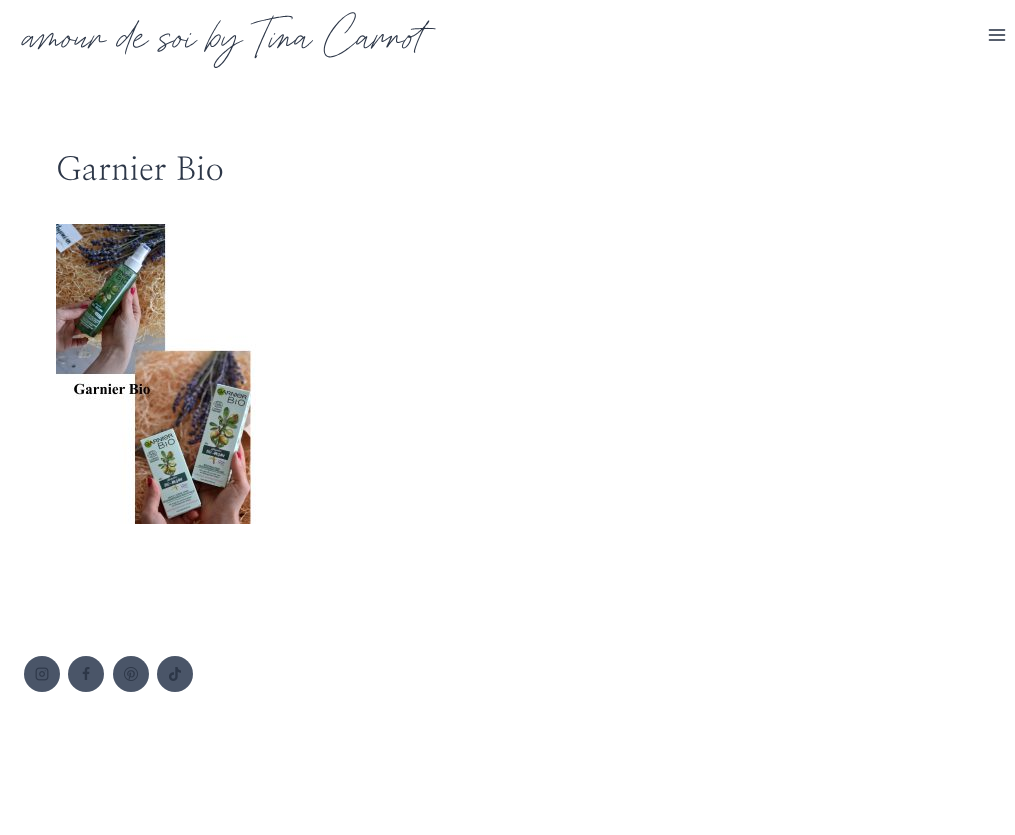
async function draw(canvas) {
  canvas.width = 1015
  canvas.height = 835
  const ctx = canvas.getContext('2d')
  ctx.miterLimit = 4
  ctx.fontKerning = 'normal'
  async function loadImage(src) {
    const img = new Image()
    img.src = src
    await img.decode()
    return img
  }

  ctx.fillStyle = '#fff'
  ctx.fillRect(0, 0, 1015, 835)
  ctx.font = '40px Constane'
  ctx.fillStyle = '#2d3748'
  ctx.fillText('amour de soi by Tina Carrot', 23, 49)
  ctx.drawImage(await loadImage('image0.png'), 988, 29, 18, 12)
  ctx.letterSpacing = '0.6px'
  ctx.font = '32px NanumMyeongjo'
  ctx.fillText('Garnier Bio', 56, 180)
  ctx.drawImage(await loadImage('image1.png'), 56, 224, 200, 300)
  ctx.fillStyle = '#4a5568'
  ctx.beginPath()
  ctx.arc(42, 674, 18, 0, 2 * Math.PI)
  ctx.fill()
  ctx.drawImage(await loadImage('image2.png'), 35, 667, 14, 14)
  ctx.beginPath()
  ctx.arc(86, 674, 18, 0, 2 * Math.PI)
  ctx.fill()
  ctx.drawImage(await loadImage('image3.png'), 82, 667, 8, 13)
  ctx.beginPath()
  ctx.arc(131, 674, 18, 0, 2 * Math.PI)
  ctx.fill()
  ctx.drawImage(await loadImage('image4.png'), 124, 667, 14, 14)
  ctx.beginPath()
  ctx.arc(175, 674, 18, 0, 2 * Math.PI)
  ctx.fill()
  ctx.drawImage(await loadImage('image5.png'), 169, 667, 12, 14)
}

draw(document.querySelector('canvas'))
